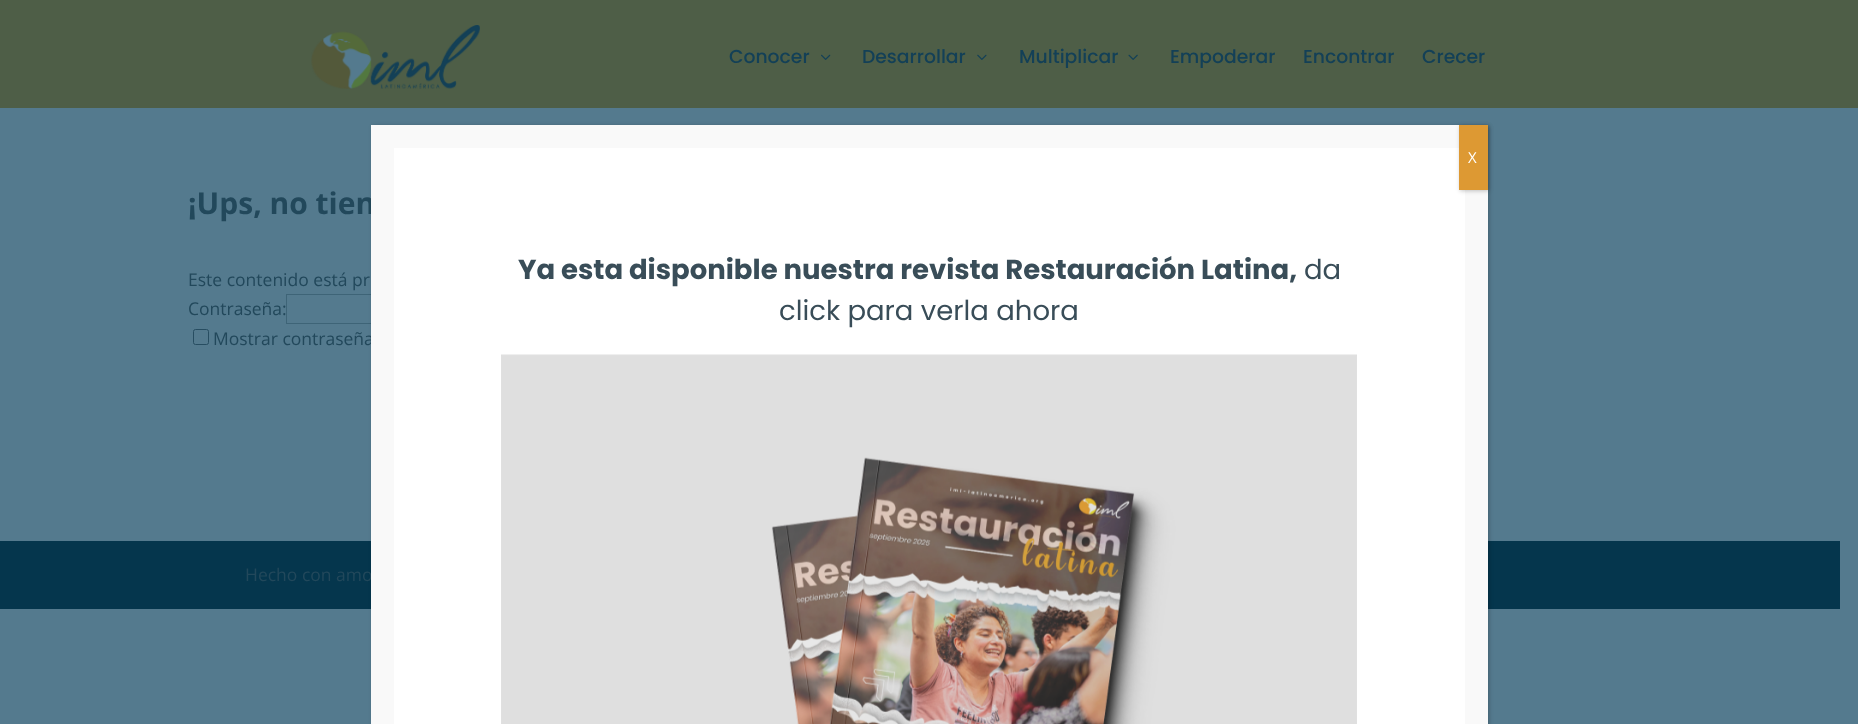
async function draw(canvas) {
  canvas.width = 1858
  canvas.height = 724
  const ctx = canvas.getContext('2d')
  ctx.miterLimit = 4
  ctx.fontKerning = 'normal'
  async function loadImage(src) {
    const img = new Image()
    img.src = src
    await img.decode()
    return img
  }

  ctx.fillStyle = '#547a8e'
  ctx.fillRect(0, 0, 1858, 724)
  ctx.fillStyle = '#4e5e47'
  ctx.fillRect(0, 0, 1858, 108)
  ctx.drawImage(await loadImage('image0.png'), 311, 25, 169, 64)
  ctx.font = '500 18.75px Poppins'
  ctx.fillStyle = '#134057'
  ctx.fillText('Conocer', 729, 63)
  ctx.drawImage(await loadImage('image1.png'), 821, 54, 10, 6)
  ctx.fillText('Desarrollar', 862, 63)
  ctx.drawImage(await loadImage('image2.png'), 977, 54, 10, 6)
  ctx.fillText('Multiplicar', 1019, 63)
  ctx.drawImage(await loadImage('image3.png'), 1128, 54, 10, 6)
  ctx.fillText('Empoderar', 1170, 63)
  ctx.fillText('Encontrar', 1303, 63)
  ctx.fillText('Crecer', 1422, 63)
  ctx.font = 'bold 30px Open Sans'
  ctx.fillStyle = '#22485b'
  ctx.fillText('¡Ups, no tien', 188, 214)
  ctx.font = '17.5px Open Sans'
  ctx.fillText('Este contenido está pr', 188, 286)
  ctx.fillText('Contraseña:', 188, 315)
  ctx.strokeStyle = '#3e6477'
  ctx.strokeRect(286.5, 294.5, 226, 29)
  ctx.beginPath()
  ctx.roundRect(193.5, 329.5, 15, 15, 2)
  ctx.strokeStyle = '#274d61'
  ctx.stroke()
  ctx.fillText('Mostrar contraseña', 213, 345)
  ctx.fillStyle = '#05364d'
  ctx.fillRect(0, 541, 1840, 68)
  ctx.fillStyle = '#22485b'
  ctx.fillText('Hecho con amo', 245, 581)
  ctx.fillStyle = '#0202023b'
  ctx.filter = 'blur(2px)'
  ctx.beginPath()
  ctx.rect(373, 126, 1116, 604)
  ctx.fill()
  ctx.filter = 'none'
  ctx.fillStyle = '#f9f9f9'
  ctx.fillRect(371, 125, 1117, 599)
  ctx.fillStyle = '#fff'
  ctx.fillRect(394, 148, 1071, 576)
  ctx.fillStyle = '#0202023b'
  ctx.filter = 'blur(2px)'
  ctx.beginPath()
  ctx.rect(1460, 126, 29, 65)
  ctx.fill()
  ctx.filter = 'none'
  ctx.fillStyle = '#d93'
  ctx.fillRect(1459, 125, 29, 65)
  ctx.font = '15px Open Sans'
  ctx.fillStyle = '#fff'
  ctx.fillText('X', 1468, 163)
  ctx.font = 'bold 27.5px Poppins'
  ctx.fillStyle = '#394d58'
  ctx.fillText('Ya esta disponible nuestra revista Restauración Latina,', 518, 279)
  ctx.font = '27.5px Poppins'
  ctx.fillText('da', 1304, 279)
  ctx.fillText('click para verla ahora', 779, 320)
  ctx.drawImage(await loadImage('image4.png'), 501, 354, 856, 370)
}

draw(document.querySelector('canvas'))
